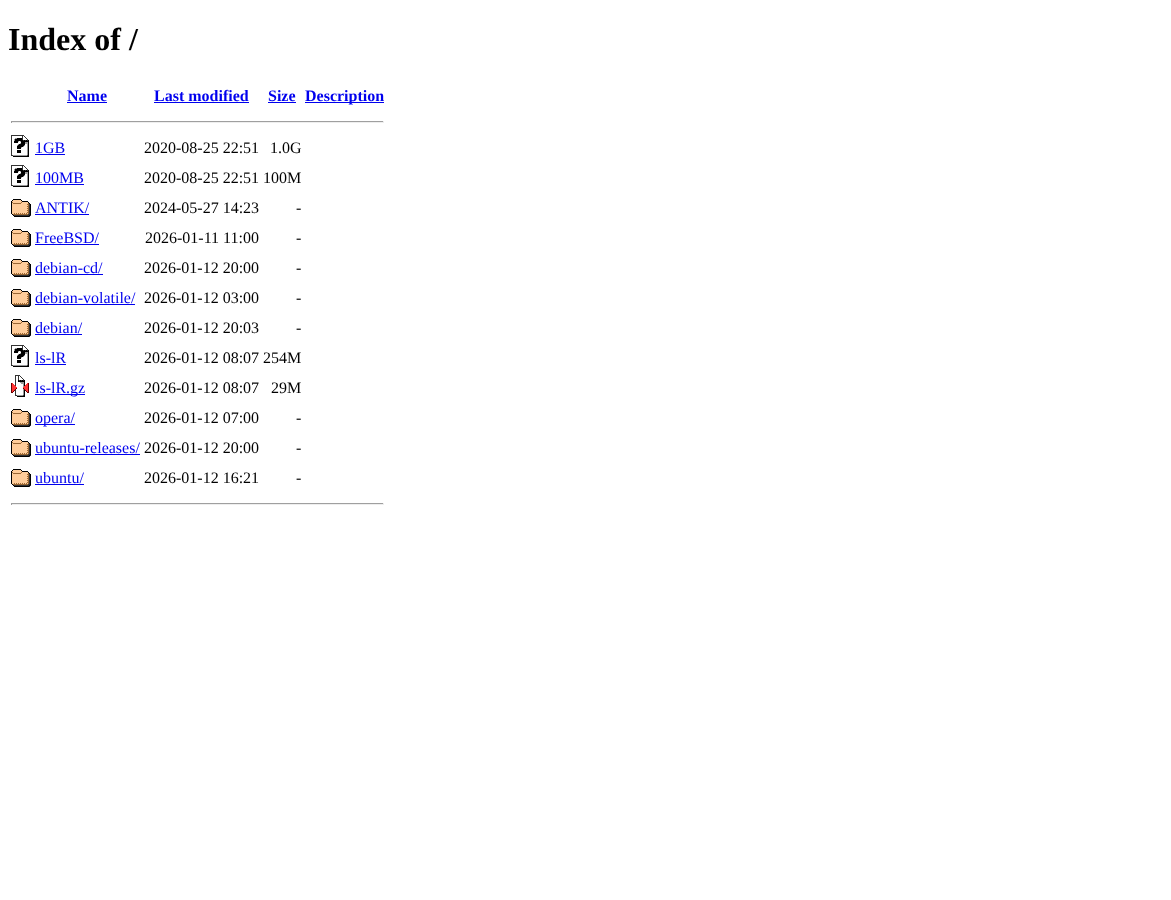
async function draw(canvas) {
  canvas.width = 1171
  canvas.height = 900
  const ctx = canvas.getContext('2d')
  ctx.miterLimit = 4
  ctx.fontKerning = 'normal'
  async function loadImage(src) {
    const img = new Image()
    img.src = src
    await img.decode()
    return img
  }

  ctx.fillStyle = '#fff'
  ctx.fillRect(0, 0, 1171, 900)
  ctx.font = 'bold 32px Liberation Serif'
  ctx.fillStyle = '#000'
  ctx.fillText('Index of /', 8, 50)
  ctx.font = 'bold 16px Liberation Serif'
  ctx.fillStyle = '#00e'
  ctx.fillText('Name', 67, 101)
  ctx.fillRect(67, 102, 40, 1)
  ctx.fillText('Last modified', 154, 101)
  ctx.fillRect(154, 102, 95, 1)
  ctx.fillText('Size', 268, 101)
  ctx.fillRect(268, 102, 28, 1)
  ctx.fillRect(305, 102, 79, 1)
  ctx.fillText('Description', 305, 101)
  ctx.fillStyle = '#9f9f9f'
  ctx.fillRect(11, 121, 373, 1)
  ctx.fillStyle = '#eee'
  ctx.fillRect(383, 121, 1, 2)
  ctx.fillRect(11, 122, 373, 1)
  ctx.fillStyle = '#9f9f9f'
  ctx.fillRect(11, 121, 1, 2)
  ctx.drawImage(await loadImage('image0.png'), 11, 135, 18, 22)
  ctx.font = '16px Liberation Serif'
  ctx.fillStyle = '#00e'
  ctx.fillText('1GB', 35, 153)
  ctx.fillRect(35, 154, 30, 1)
  ctx.fillStyle = '#000'
  ctx.fillText('2020-08-25 22:51', 144, 153)
  ctx.fillText('1.0G', 270, 153)
  ctx.drawImage(await loadImage('image0.png'), 11, 165, 18, 22)
  ctx.fillStyle = '#00e'
  ctx.fillText('100MB', 35, 183)
  ctx.fillRect(35, 184, 49, 1)
  ctx.fillStyle = '#000'
  ctx.fillText('2020-08-25 22:51 100M', 144, 183)
  ctx.drawImage(await loadImage('image1.png'), 11, 199, 20, 18)
  ctx.fillStyle = '#00e'
  ctx.fillText('ANTIK/', 35, 213)
  ctx.fillRect(35, 214, 54, 1)
  ctx.fillStyle = '#000'
  ctx.fillText('2024-05-27 14:23', 144, 213)
  ctx.fillText('-', 296, 213)
  ctx.drawImage(await loadImage('image1.png'), 11, 229, 20, 18)
  ctx.fillStyle = '#00e'
  ctx.fillText('FreeBSD/', 35, 243)
  ctx.fillRect(35, 244, 64, 1)
  ctx.fillStyle = '#000'
  ctx.fillText('2026-01-11 11:00', 145, 243)
  ctx.fillText('-', 296, 243)
  ctx.drawImage(await loadImage('image1.png'), 11, 259, 20, 18)
  ctx.fillStyle = '#00e'
  ctx.fillText('debian-cd/', 35, 273)
  ctx.fillRect(35, 274, 68, 1)
  ctx.fillStyle = '#000'
  ctx.fillText('2026-01-12 20:00', 144, 273)
  ctx.fillText('-', 296, 273)
  ctx.drawImage(await loadImage('image1.png'), 11, 289, 20, 18)
  ctx.fillStyle = '#00e'
  ctx.fillText('debian-volatile/', 35, 303)
  ctx.fillRect(35, 304, 100, 1)
  ctx.fillStyle = '#000'
  ctx.fillText('2026-01-12 03:00', 144, 303)
  ctx.fillText('-', 296, 303)
  ctx.drawImage(await loadImage('image1.png'), 11, 319, 20, 18)
  ctx.fillStyle = '#00e'
  ctx.fillText('debian/', 35, 333)
  ctx.fillRect(35, 334, 47, 1)
  ctx.fillStyle = '#000'
  ctx.fillText('2026-01-12 20:03', 144, 333)
  ctx.fillText('-', 296, 333)
  ctx.drawImage(await loadImage('image0.png'), 11, 345, 18, 22)
  ctx.fillStyle = '#00e'
  ctx.fillText('ls-lR', 35, 363)
  ctx.fillRect(35, 364, 31, 1)
  ctx.fillStyle = '#000'
  ctx.fillText('2026-01-12 08:07 254M', 144, 363)
  ctx.drawImage(await loadImage('image2.png'), 11, 375, 18, 22)
  ctx.fillStyle = '#00e'
  ctx.fillRect(35, 394, 50, 1)
  ctx.fillText('ls-lR.gz', 35, 393)
  ctx.fillStyle = '#000'
  ctx.fillText('2026-01-12 08:07', 144, 393)
  ctx.fillText('29M', 271, 393)
  ctx.drawImage(await loadImage('image1.png'), 11, 409, 20, 18)
  ctx.fillStyle = '#00e'
  ctx.fillRect(35, 424, 40, 1)
  ctx.fillText('opera/', 35, 423)
  ctx.fillStyle = '#000'
  ctx.fillText('2026-01-12 07:00', 144, 423)
  ctx.fillText('-', 296, 423)
  ctx.drawImage(await loadImage('image1.png'), 11, 439, 20, 18)
  ctx.fillStyle = '#00e'
  ctx.fillText('ubuntu-releases/', 35, 453)
  ctx.fillRect(35, 454, 105, 1)
  ctx.fillStyle = '#000'
  ctx.fillText('2026-01-12 20:00', 144, 453)
  ctx.fillText('-', 296, 453)
  ctx.drawImage(await loadImage('image1.png'), 11, 469, 20, 18)
  ctx.fillStyle = '#00e'
  ctx.fillText('ubuntu/', 35, 483)
  ctx.fillRect(35, 484, 49, 1)
  ctx.fillStyle = '#000'
  ctx.fillText('2026-01-12 16:21', 144, 483)
  ctx.fillText('-', 296, 483)
  ctx.fillStyle = '#9f9f9f'
  ctx.fillRect(11, 503, 373, 1)
  ctx.fillStyle = '#eee'
  ctx.fillRect(383, 503, 1, 2)
  ctx.fillRect(11, 504, 373, 1)
  ctx.fillStyle = '#9f9f9f'
  ctx.fillRect(11, 503, 1, 2)
}

draw(document.querySelector('canvas'))
